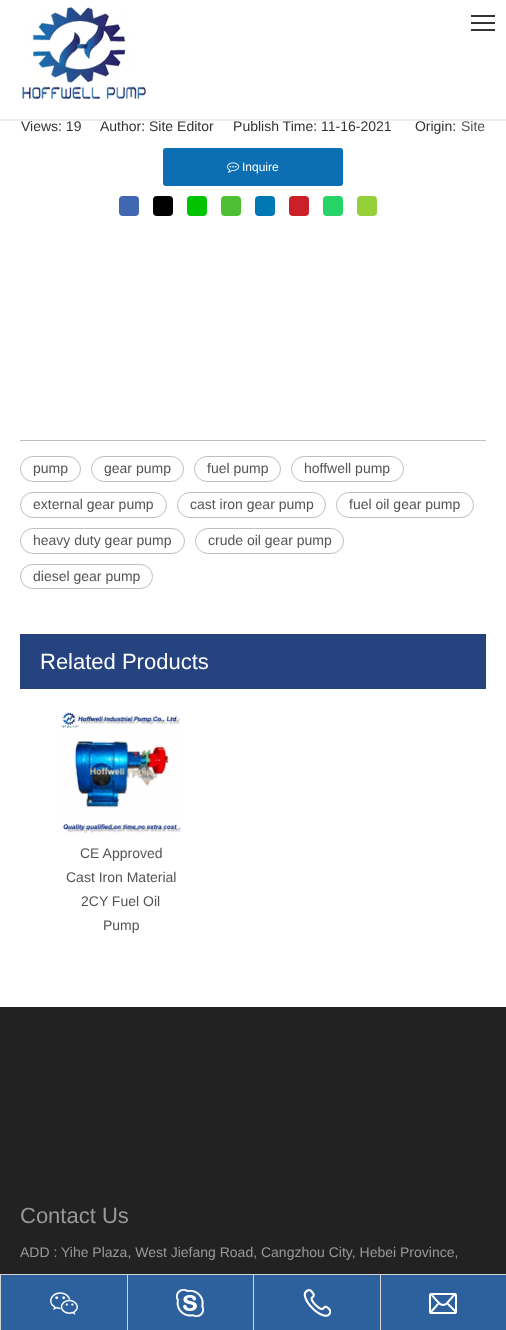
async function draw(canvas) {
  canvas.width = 506
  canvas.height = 1330
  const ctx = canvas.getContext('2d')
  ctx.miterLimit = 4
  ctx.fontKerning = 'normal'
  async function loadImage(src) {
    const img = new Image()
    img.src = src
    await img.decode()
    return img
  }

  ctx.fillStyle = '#fff'
  ctx.fillRect(0, 0, 506, 1330)
  ctx.font = '14px Liberation Sans'
  ctx.fillStyle = '#333'
  ctx.fillText('Views: 19', 21, 131)
  ctx.fillText('Author: Site Editor     Publish Time: 11-16-2021      Origin:', 100, 131)
  ctx.fillStyle = '#545454'
  ctx.fillText('Site', 461, 131)
  ctx.fillStyle = '#eee'
  ctx.fillRect(0, 119, 506, 2)
  ctx.drawImage(await loadImage('image0.png'), 22, 7, 124, 93)
  ctx.fillStyle = '#333'
  ctx.fillRect(471, 15, 24, 2)
  ctx.fillRect(471, 22, 24, 2)
  ctx.fillRect(471, 29, 24, 2)
  ctx.fillStyle = '#0c6fb3'
  ctx.beginPath()
  ctx.roundRect(163, 148, 180, 38, 3)
  ctx.fill()
  ctx.drawImage(await loadImage('image1.png'), 227, 162, 12, 11)
  ctx.font = '12px Liberation Sans'
  ctx.fillStyle = '#fff'
  ctx.fillText('Inquire', 242, 171)
  ctx.fillStyle = '#4267b2'
  ctx.beginPath()
  ctx.roundRect(119, 196, 20, 20, 4)
  ctx.fill()
  ctx.fillStyle = '#000'
  ctx.beginPath()
  ctx.roundRect(153, 196, 20, 20, 4)
  ctx.fill()
  ctx.fillStyle = '#00c300'
  ctx.beginPath()
  ctx.roundRect(187, 196, 20, 20, 4)
  ctx.fill()
  ctx.fillStyle = '#4ec034'
  ctx.beginPath()
  ctx.roundRect(221, 196, 20, 20, 4)
  ctx.fill()
  ctx.fillStyle = '#0077b5'
  ctx.beginPath()
  ctx.roundRect(255, 196, 20, 20, 4)
  ctx.fill()
  ctx.fillStyle = '#cb2027'
  ctx.beginPath()
  ctx.roundRect(289, 196, 20, 20, 4)
  ctx.fill()
  ctx.fillStyle = '#25d366'
  ctx.beginPath()
  ctx.roundRect(323, 196, 20, 20, 4)
  ctx.fill()
  ctx.fillStyle = '#95d03a'
  ctx.beginPath()
  ctx.roundRect(357, 196, 20, 20, 4)
  ctx.fill()
  ctx.fillStyle = '#c0c0c0'
  ctx.fillRect(20, 440, 466, 1)
  ctx.beginPath()
  ctx.roundRect(20.5, 456.5, 60, 25, 12.5)
  ctx.strokeStyle = '#c0c0c0'
  ctx.stroke()
  ctx.font = '14px Liberation Sans'
  ctx.fillStyle = '#545454'
  ctx.fillText('pump', 33, 473)
  ctx.beginPath()
  ctx.roundRect(91.5, 456.5, 92, 25, 12.5)
  ctx.stroke()
  ctx.fillText('gear pump', 104, 473)
  ctx.beginPath()
  ctx.roundRect(194.5, 456.5, 86, 25, 12.5)
  ctx.stroke()
  ctx.fillText('fuel pump', 207, 473)
  ctx.beginPath()
  ctx.roundRect(291.5, 456.5, 112, 25, 12.5)
  ctx.stroke()
  ctx.fillText('hoffwell pump', 304, 473)
  ctx.beginPath()
  ctx.roundRect(20.5, 492.5, 146, 25, 12.5)
  ctx.stroke()
  ctx.fillText('external gear pump', 33, 509)
  ctx.beginPath()
  ctx.roundRect(177.5, 492.5, 148, 25, 12.5)
  ctx.stroke()
  ctx.fillText('cast iron gear pump', 190, 509)
  ctx.beginPath()
  ctx.roundRect(336.5, 492.5, 137, 25, 12.5)
  ctx.stroke()
  ctx.fillText('fuel oil gear pump', 349, 509)
  ctx.beginPath()
  ctx.roundRect(20.5, 528.5, 164, 25, 12.5)
  ctx.stroke()
  ctx.fillText('heavy duty gear pump', 33, 545)
  ctx.beginPath()
  ctx.roundRect(195.5, 528.5, 148, 25, 12.5)
  ctx.stroke()
  ctx.fillText('crude oil gear pump', 208, 545)
  ctx.beginPath()
  ctx.roundRect(20.5, 564.5, 132, 24, 12)
  ctx.stroke()
  ctx.fillText('diesel gear pump', 33, 581)
  ctx.fillStyle = '#24437f'
  ctx.fillRect(20, 634, 466, 55)
  ctx.font = '22px Liberation Sans'
  ctx.fillStyle = '#fff'
  ctx.fillText('Related Products', 40, 669)
  ctx.drawImage(await loadImage('image2.png'), 61, 711, 120, 123)
  ctx.font = '14px Liberation Sans'
  ctx.fillStyle = '#545454'
  ctx.fillText('CE Approved', 80, 858)
  ctx.fillText('Cast Iron Material', 66, 882)
  ctx.fillText('2CY Fuel Oil', 81, 906)
  ctx.fillText('Pump', 103, 930)
  ctx.fillStyle = '#222'
  ctx.fillRect(0, 1007, 506, 267)
  ctx.font = '22px Liberation Sans'
  ctx.fillStyle = '#999'
  ctx.fillText('Contact Us', 20, 1223)
  ctx.font = '14px Liberation Sans'
  ctx.fillText('ADD : Yihe Plaza, West Jiefang Road, Cangzhou City, Hebei Province,', 20, 1257)
  ctx.fillStyle = '#d3d3d3'
  ctx.fillRect(0, 1274, 506, 1)
  ctx.fillRect(0, 1275, 1, 55)
  ctx.fillStyle = '#2c619e'
  ctx.fillRect(1, 1275, 126, 55)
  ctx.drawImage(await loadImage('image3.png'), 50, 1292, 28, 23)
  ctx.fillStyle = '#d3d3d3'
  ctx.fillRect(127, 1275, 1, 55)
  ctx.fillStyle = '#2c619e'
  ctx.fillRect(128, 1275, 125, 55)
  ctx.drawImage(await loadImage('image4.png'), 176, 1289, 28, 28)
  ctx.fillStyle = '#d3d3d3'
  ctx.fillRect(253, 1275, 1, 55)
  ctx.fillStyle = '#2c619e'
  ctx.fillRect(254, 1275, 126, 55)
  ctx.drawImage(await loadImage('image5.png'), 303, 1289, 28, 28)
  ctx.fillStyle = '#d3d3d3'
  ctx.fillRect(380, 1275, 1, 55)
  ctx.fillStyle = '#2c619e'
  ctx.fillRect(381, 1275, 125, 55)
  ctx.drawImage(await loadImage('image6.png'), 429, 1293, 28, 21)
}

draw(document.querySelector('canvas'))
